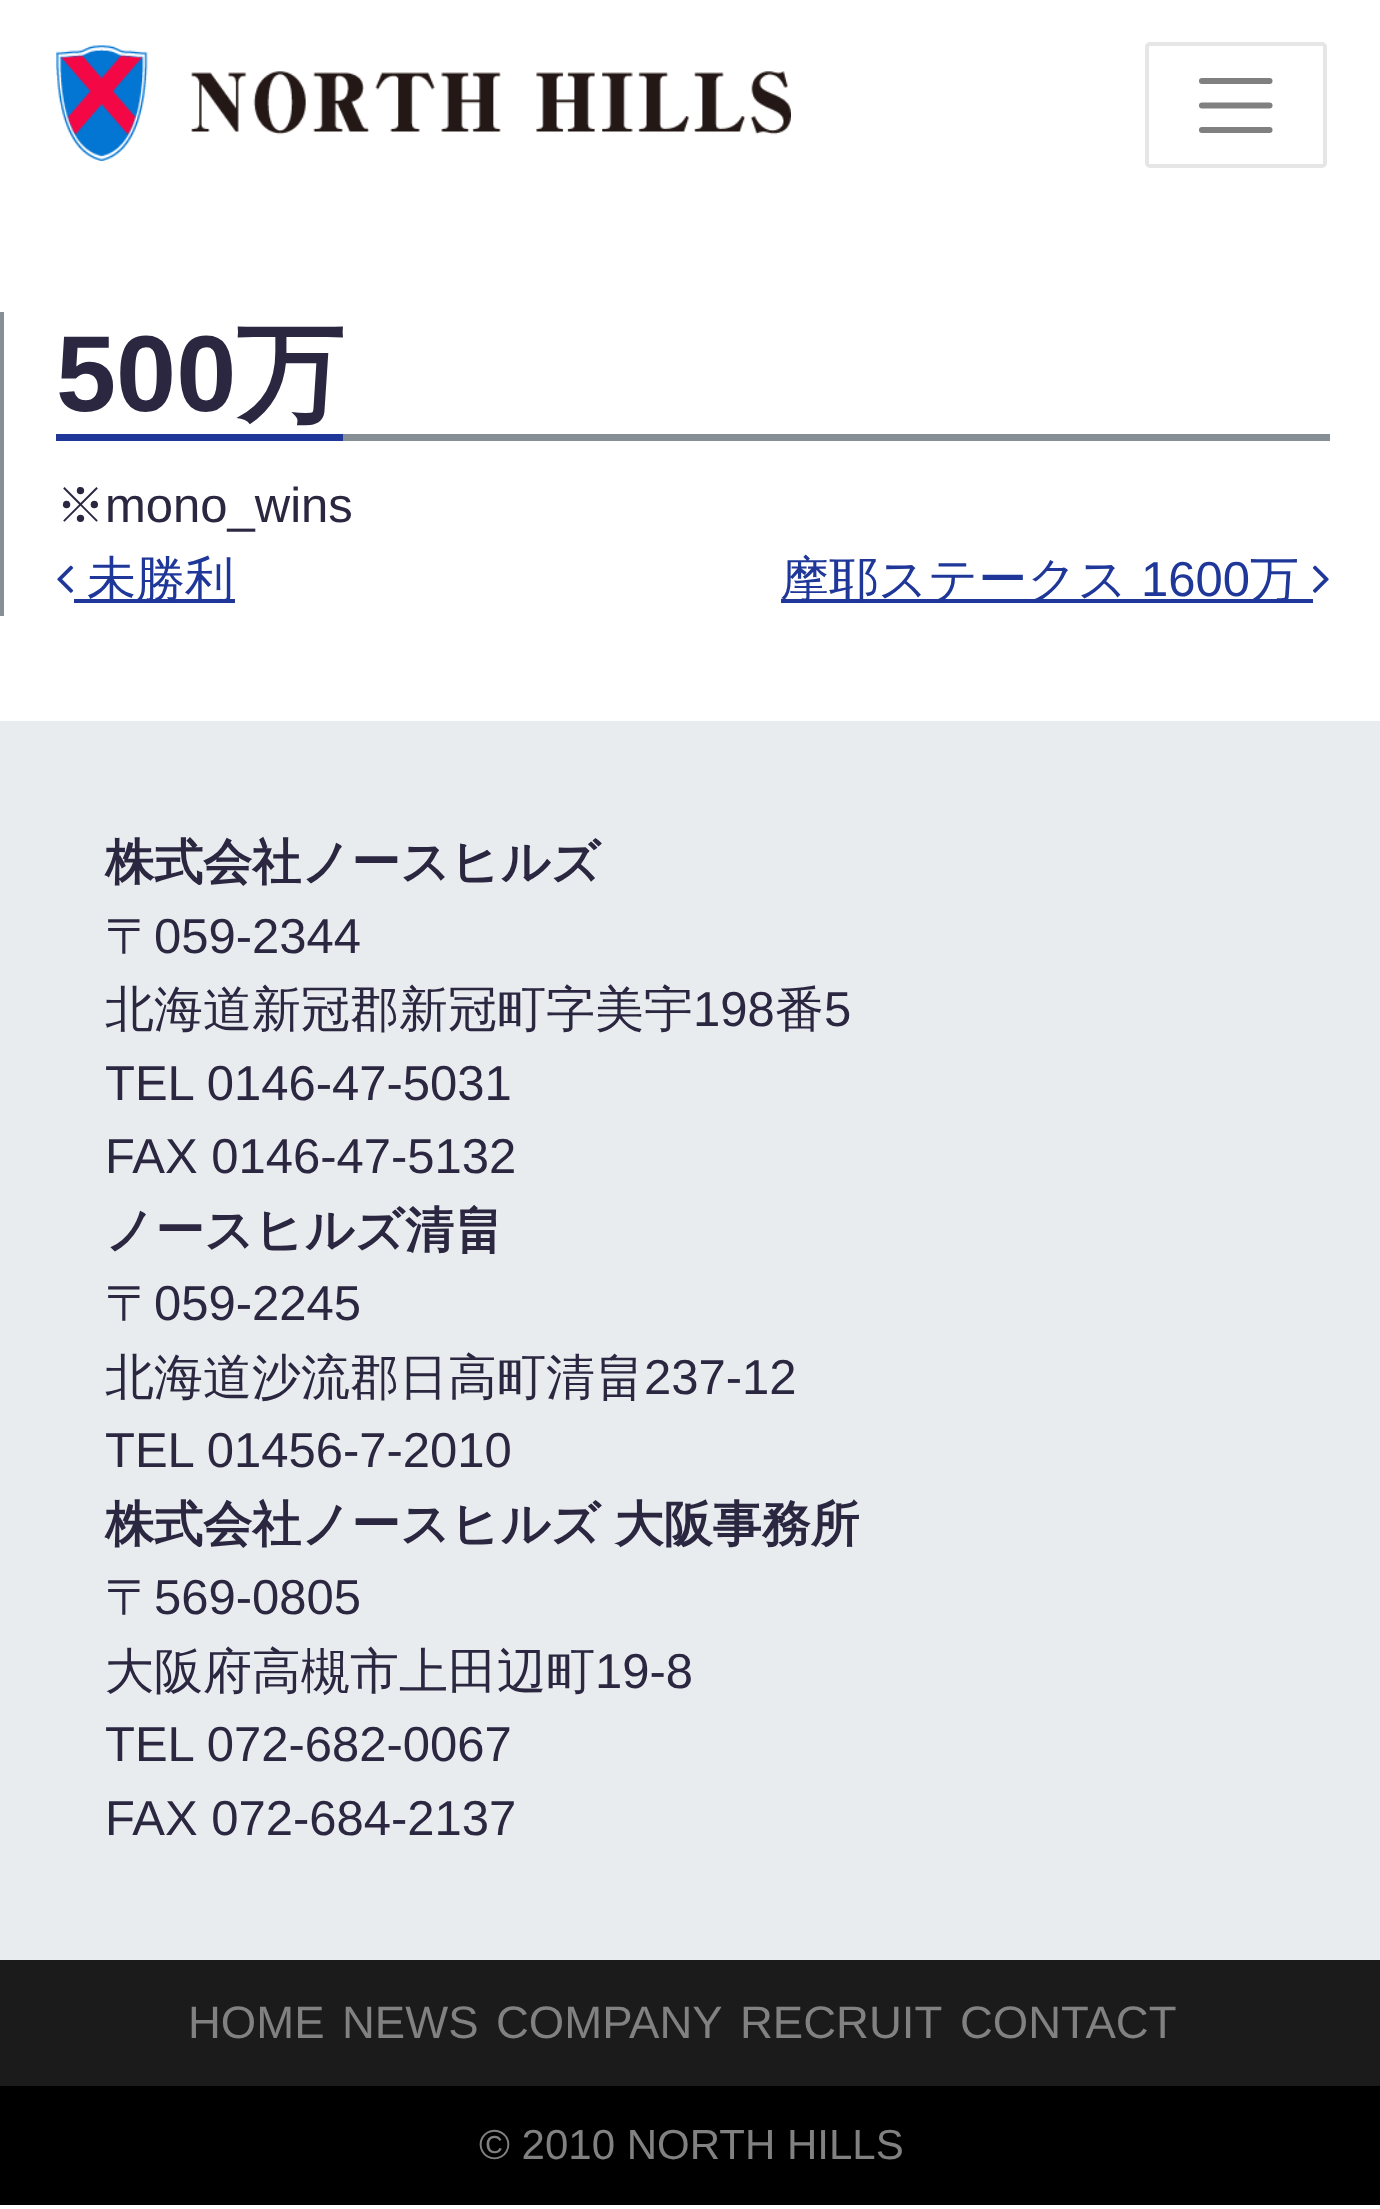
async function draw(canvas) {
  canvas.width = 1380
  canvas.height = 2209
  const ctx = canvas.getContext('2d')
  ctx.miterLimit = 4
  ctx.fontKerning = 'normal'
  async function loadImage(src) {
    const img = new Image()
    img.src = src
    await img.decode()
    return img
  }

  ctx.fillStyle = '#fff'
  ctx.fillRect(0, 0, 1380, 2209)
  ctx.drawImage(await loadImage('image0.png'), 56, 45, 735, 116)
  ctx.beginPath()
  ctx.roundRect(1147, 44, 178, 122, 3)
  ctx.strokeStyle = '#e6e6e6'
  ctx.lineWidth = 4
  ctx.stroke()
  ctx.beginPath()
  ctx.moveTo(1202, 81)
  ctx.lineTo(1269.5, 81)
  ctx.moveTo(1202, 105.5)
  ctx.lineTo(1269.5, 105.5)
  ctx.moveTo(1202, 130)
  ctx.lineTo(1269.5, 130)
  ctx.strokeStyle = '#808080'
  ctx.lineWidth = 6.1
  ctx.lineCap = 'round'
  ctx.stroke()
  ctx.fillStyle = '#868e96'
  ctx.fillRect(0, 312, 4, 304)
  ctx.font = 'bold 108px Liberation Sans'
  ctx.fillStyle = '#2b2741'
  ctx.fillText('500', 56, 411)
  ctx.font = 'bold 108px WenQuanYi Zen Hei'
  ctx.fillText('万', 236, 411)
  ctx.fillStyle = '#1e3799'
  ctx.fillRect(56, 434, 287, 7)
  ctx.fillStyle = '#868e96'
  ctx.fillRect(343, 434, 987, 7)
  ctx.font = '500 49px WenQuanYi Zen Hei'
  ctx.fillStyle = '#2b2741'
  ctx.fillText('※', 56, 522)
  ctx.font = '49px Liberation Sans'
  ctx.fillText('mono_wins', 105, 522)
  ctx.drawImage(await loadImage('image1.png'), 57, 565, 17, 28)
  ctx.fillStyle = '#1e3799'
  ctx.fillRect(74, 599, 161, 4)
  ctx.font = '500 49px WenQuanYi Zen Hei'
  ctx.fillText('未勝利', 87, 596)
  ctx.fillRect(781, 599, 532, 4)
  ctx.fillText('摩耶ステークス', 780, 596)
  ctx.font = '49px Liberation Sans'
  ctx.fillText('1600', 1141, 596)
  ctx.font = '500 49px WenQuanYi Zen Hei'
  ctx.fillText('万', 1250, 596)
  ctx.drawImage(await loadImage('image2.png'), 1312, 565, 17, 28)
  ctx.fillStyle = '#e9ecef'
  ctx.fillRect(0, 721, 1380, 1239)
  ctx.font = 'bold 49px WenQuanYi Zen Hei'
  ctx.fillStyle = '#2b2741'
  ctx.fillText('株式会社ノースヒルズ', 105, 879)
  ctx.font = '500 49px WenQuanYi Zen Hei'
  ctx.fillText('〒', 105, 953)
  ctx.font = '49px Liberation Sans'
  ctx.fillText('059-2344', 154, 953)
  ctx.font = '500 49px WenQuanYi Zen Hei'
  ctx.fillText('北海道新冠郡新冠町字美宇', 105, 1026)
  ctx.font = '49px Liberation Sans'
  ctx.fillText('198', 693, 1026)
  ctx.font = '500 49px WenQuanYi Zen Hei'
  ctx.fillText('番', 775, 1026)
  ctx.font = '49px Liberation Sans'
  ctx.fillText('5', 824, 1026)
  ctx.fillText('TEL 0146-47-5031', 105, 1100)
  ctx.fillText('FAX 0146-47-5132', 105, 1173)
  ctx.font = 'bold 49px WenQuanYi Zen Hei'
  ctx.fillText('ノースヒルズ清畠', 105, 1247)
  ctx.font = '500 49px WenQuanYi Zen Hei'
  ctx.fillText('〒', 105, 1320)
  ctx.font = '49px Liberation Sans'
  ctx.fillText('059-2245', 154, 1320)
  ctx.font = '500 49px WenQuanYi Zen Hei'
  ctx.fillText('北海道沙流郡日高町清畠', 105, 1394)
  ctx.font = '49px Liberation Sans'
  ctx.fillText('237-12', 644, 1394)
  ctx.fillText('TEL 01456-7-2010', 105, 1467)
  ctx.wordSpacing = '-1px'
  ctx.font = 'bold 49px WenQuanYi Zen Hei'
  ctx.fillText('株式会社ノースヒルズ 大阪事務所', 105, 1541)
  ctx.wordSpacing = '0px'
  ctx.font = '500 49px WenQuanYi Zen Hei'
  ctx.fillText('〒', 105, 1614)
  ctx.font = '49px Liberation Sans'
  ctx.fillText('569-0805', 154, 1614)
  ctx.font = '500 49px WenQuanYi Zen Hei'
  ctx.fillText('大阪府高槻市上田辺町', 105, 1688)
  ctx.font = '49px Liberation Sans'
  ctx.fillText('19-8', 595, 1688)
  ctx.fillText('TEL 072-682-0067', 105, 1761)
  ctx.fillText('FAX 072-684-2137', 105, 1835)
  ctx.fillStyle = '#1b1b1b'
  ctx.fillRect(0, 1960, 1380, 126)
  ctx.font = '45.5px Liberation Sans'
  ctx.fillStyle = '#818181'
  ctx.fillText('HOME', 188, 2038)
  ctx.fillText('NEWS', 342, 2038)
  ctx.fillText('COMPANY', 496, 2038)
  ctx.fillText('RECRUIT', 740, 2038)
  ctx.fillText('CONTACT', 960, 2038)
  ctx.fillStyle = '#000'
  ctx.fillRect(0, 2086, 1380, 119)
  ctx.font = '42px Liberation Sans'
  ctx.fillStyle = '#818181'
  ctx.fillText('© 2010 NORTH HILLS', 479, 2159)
}

draw(document.querySelector('canvas'))
